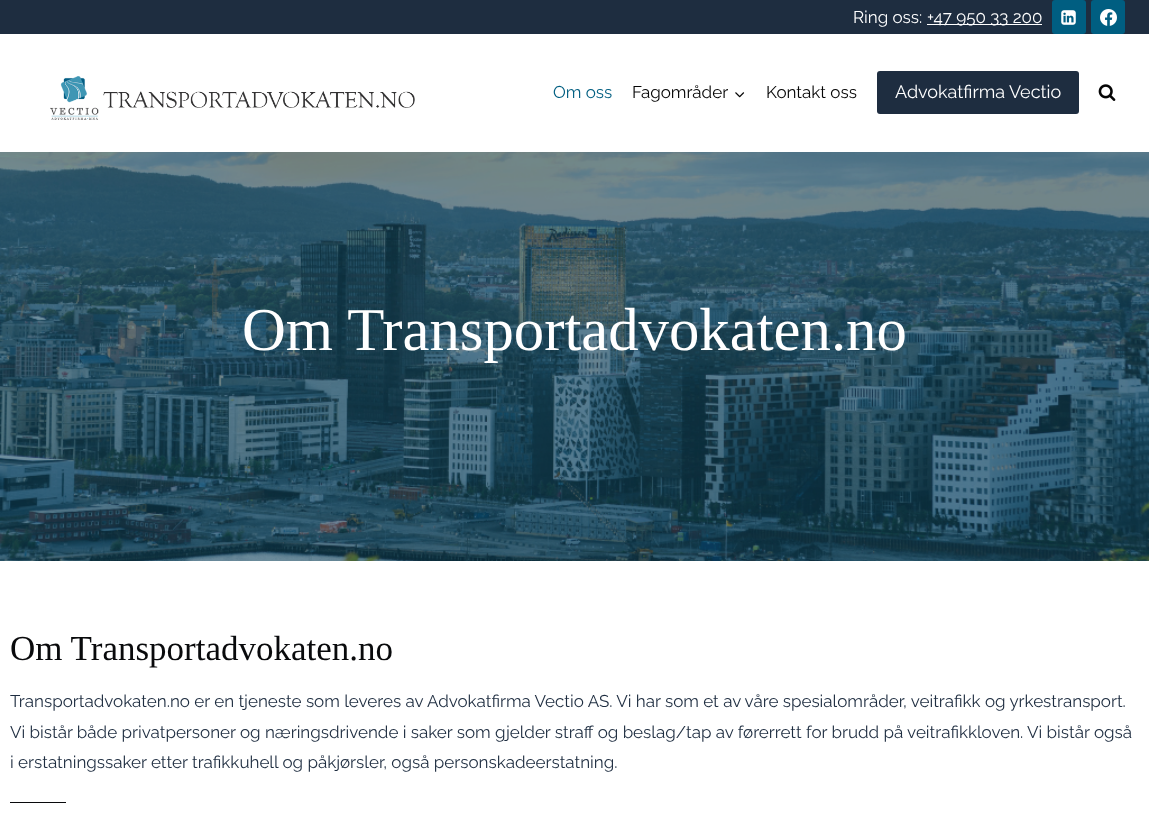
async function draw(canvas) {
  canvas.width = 1149
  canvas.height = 835
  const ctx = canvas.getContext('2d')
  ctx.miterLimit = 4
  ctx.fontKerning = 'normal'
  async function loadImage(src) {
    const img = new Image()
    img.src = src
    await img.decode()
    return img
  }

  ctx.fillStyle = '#fff'
  ctx.fillRect(0, 0, 1149, 835)
  ctx.fillStyle = '#1e2d40'
  ctx.fillRect(0, 0, 1149, 34)
  ctx.font = '17px Raleway'
  ctx.fillStyle = '#fff'
  ctx.fillText('Ring oss:', 853, 23)
  ctx.fillRect(927, 24, 115, 1)
  ctx.fillText('+47 950 33 200', 927, 23)
  ctx.fillStyle = '#005e81'
  ctx.beginPath()
  ctx.roundRect(1052, 0, 34, 34, 3)
  ctx.fill()
  ctx.drawImage(await loadImage('image0.png'), 1061, 10, 15, 15)
  ctx.beginPath()
  ctx.roundRect(1091, 0, 34, 34, 3)
  ctx.fill()
  ctx.drawImage(await loadImage('image1.png'), 1100, 9, 17, 17)
  ctx.drawImage(await loadImage('image2.png'), 50, 76, 365, 44)
  ctx.fillText('Om oss', 553, 98)
  ctx.fillStyle = '#050505'
  ctx.fillText('Fagområder', 632, 98)
  ctx.drawImage(await loadImage('image3.png'), 735, 92, 10, 6)
  ctx.fillText('Kontakt oss', 766, 98)
  ctx.fillStyle = '#1e2d40'
  ctx.beginPath()
  ctx.roundRect(877, 71, 202, 43, 3)
  ctx.fill()
  ctx.font = '18px Raleway'
  ctx.fillStyle = '#fff'
  ctx.fillText('Advokatfirma Vectio', 895, 98)
  ctx.drawImage(await loadImage('image4.png'), 1098, 84, 18, 17)
  ctx.drawImage(await loadImage('image5.png'), 0, 152, 1149, 409)
  ctx.font = '60.75px Liberation Serif'
  ctx.fillText('Om Transportadvokaten.no', 242, 350)
  ctx.font = '35px Liberation Serif'
  ctx.fillStyle = '#090a0c'
  ctx.fillText('Om Transportadvokaten.no', 10, 660)
  ctx.font = '17px Raleway'
  ctx.fillStyle = '#1e2d40'
  ctx.fillText('Transportadvokaten.no er en tjeneste som leveres av Advokatfirma Vectio AS. Vi har som et av våre spesialområder, veitrafikk og yrkestransport.', 10, 707)
  ctx.fillText('Vi bistår både privatpersoner og næringsdrivende i saker som gjelder straff og beslag/tap av førerrett for brudd på veitrafikkloven. Vi bistår også', 10, 738)
  ctx.fillText('i erstatningssaker etter trafikkuhell og påkjørsler, også personskadeerstatning.', 10, 768)
  ctx.fillStyle = '#090a0c'
  ctx.fillRect(10, 802, 56, 1)
}

draw(document.querySelector('canvas'))
